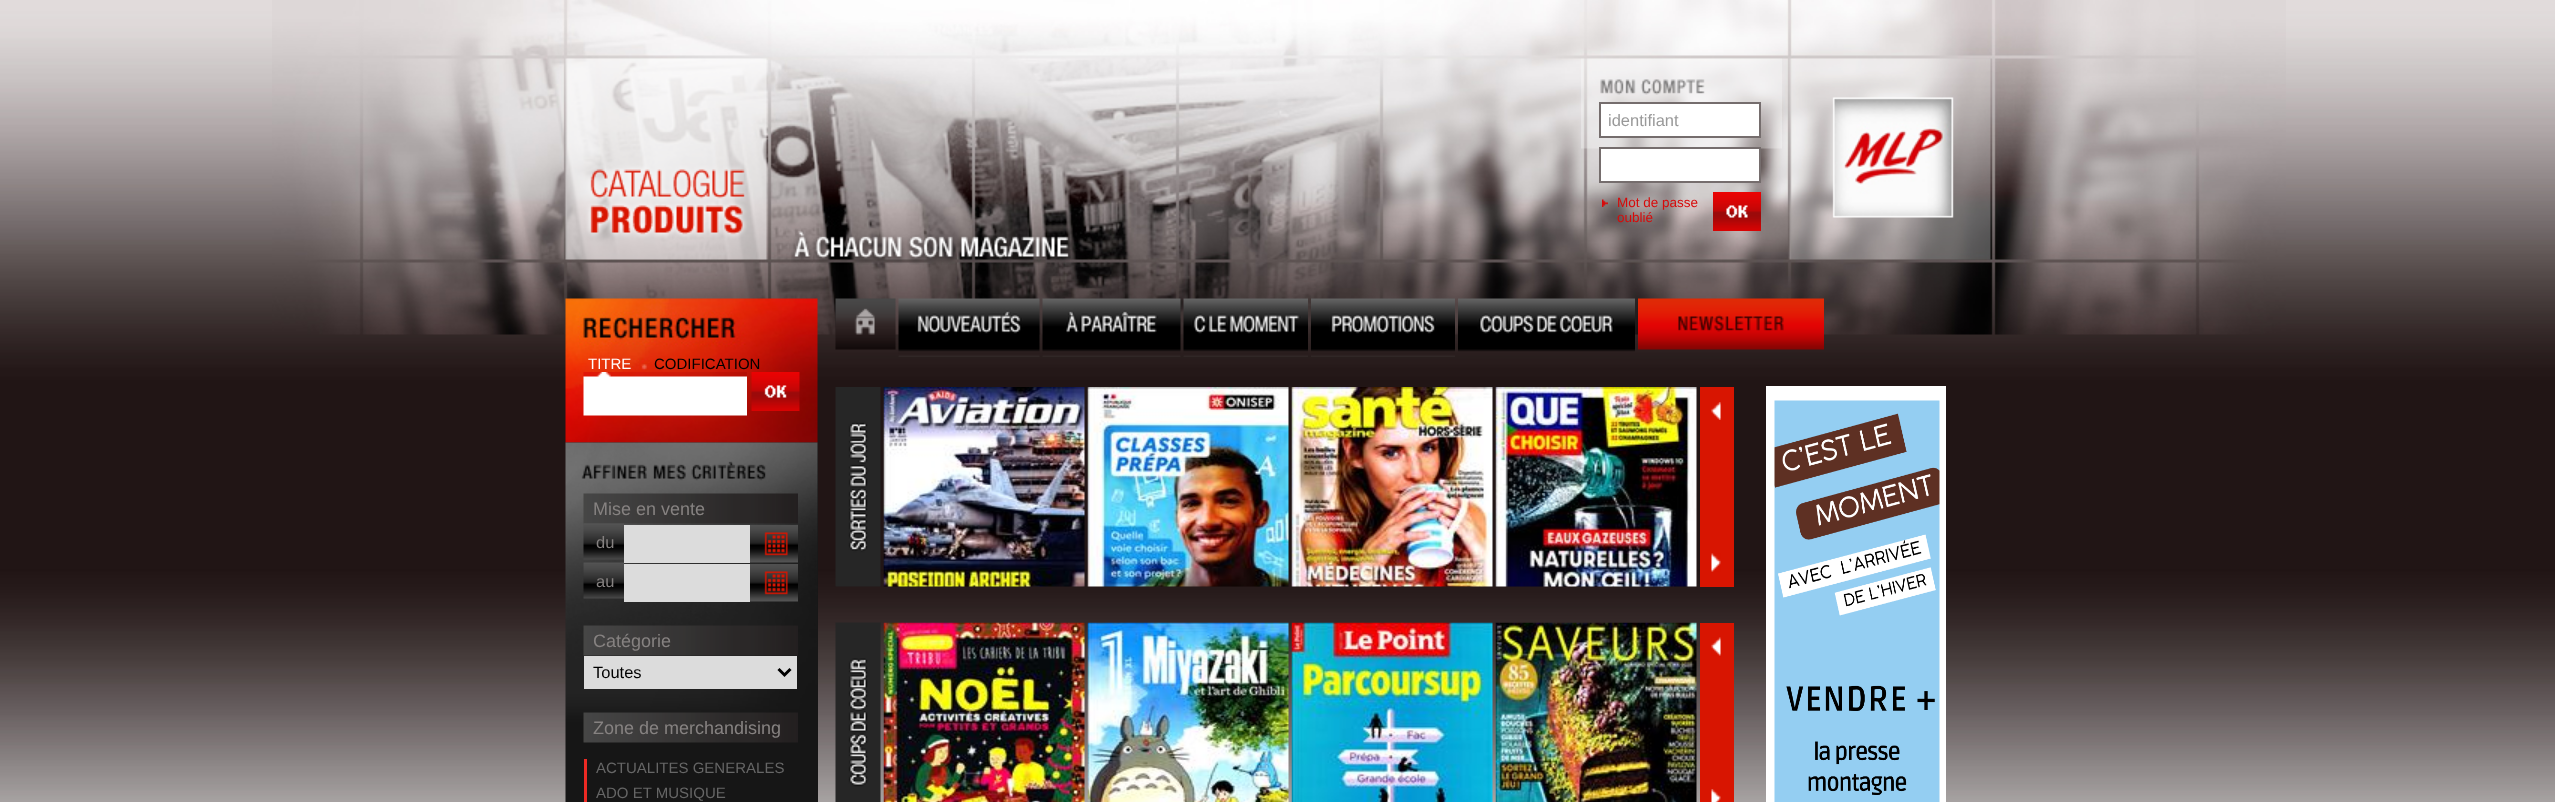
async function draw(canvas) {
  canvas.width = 2555
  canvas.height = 802
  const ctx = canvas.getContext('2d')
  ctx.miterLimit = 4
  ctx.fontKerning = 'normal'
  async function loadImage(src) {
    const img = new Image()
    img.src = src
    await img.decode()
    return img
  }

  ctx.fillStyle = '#fff'
  ctx.fillRect(0, 0, 2555, 802)
  ctx.drawImage(await loadImage('image0.png'), 0, 0, 2555, 802)
  ctx.drawImage(await loadImage('image1.png'), 272, 0, 2014, 335)
  ctx.drawImage(await loadImage('image2.png'), 565, 58, 202, 202)
  ctx.drawImage(await loadImage('image3.png'), 1581, 58, 201, 91)
  ctx.beginPath()
  ctx.rect(1600, 103, 160, 34)
  ctx.fill()
  ctx.strokeStyle = '#756d6d'
  ctx.lineWidth = 2
  ctx.stroke()
  ctx.font = '16.5px Liberation Sans'
  ctx.fillStyle = '#999'
  ctx.fillText('identifiant', 1608, 126)
  ctx.fillStyle = '#fff'
  ctx.beginPath()
  ctx.rect(1600, 148, 160, 34)
  ctx.fill()
  ctx.stroke()
  ctx.drawImage(await loadImage('image4.png'), 1602, 199, 6, 8)
  ctx.font = '13.5px Liberation Sans'
  ctx.fillStyle = '#d70a0a'
  ctx.fillText('Mot de passe', 1617, 207)
  ctx.fillText('oublié', 1617, 222)
  ctx.drawImage(await loadImage('image5.png'), 1713, 192, 48, 39)
  ctx.drawImage(await loadImage('image6.png'), 1789, 58, 202, 202)
  ctx.drawImage(await loadImage('image7.png'), 791, 231, 279, 34)
  ctx.drawImage(await loadImage('image8.png'), 565, 298, 253, 145)
  ctx.font = '15px Liberation Sans'
  ctx.fillStyle = '#fff'
  ctx.fillText('TITRE', 588, 369)
  ctx.fillStyle = '#000'
  ctx.fillText('CODIFICATION', 654, 369)
  ctx.drawImage(await loadImage('image9.png'), 583, 372, 164, 44)
  ctx.drawImage(await loadImage('image10.png'), 751, 372, 49, 39)
  ctx.fillStyle = '#161616'
  ctx.fillRect(817, 443, 1, 359)
  ctx.drawImage(await loadImage('image11.png'), 565, 442, 253, 360)
  ctx.drawImage(await loadImage('image12.png'), 583, 493, 215, 31)
  ctx.font = '18px Liberation Sans'
  ctx.fillStyle = '#868281'
  ctx.fillText('Mise en vente', 593, 515)
  ctx.drawImage(await loadImage('image13.png'), 583, 523, 41, 37)
  ctx.font = '16.5px Liberation Sans'
  ctx.fillText('du', 596, 548)
  ctx.fillStyle = '#dcdcdc'
  ctx.fillRect(624, 525, 126, 38)
  ctx.drawImage(await loadImage('image14.png'), 750, 525, 48, 38)
  ctx.drawImage(await loadImage('image15.png'), 583, 562, 41, 37)
  ctx.fillStyle = '#868281'
  ctx.fillText('au', 596, 587)
  ctx.fillStyle = '#dcdcdc'
  ctx.fillRect(624, 564, 126, 38)
  ctx.drawImage(await loadImage('image16.png'), 750, 564, 48, 38)
  ctx.drawImage(await loadImage('image17.png'), 583, 625, 215, 31)
  ctx.font = '18px Liberation Sans'
  ctx.fillStyle = '#868281'
  ctx.fillText('Catégorie', 593, 647)
  ctx.fillStyle = '#dcdcdc'
  ctx.fillRect(584, 656, 213, 33)
  ctx.beginPath()
  ctx.moveTo(778.5, 669)
  ctx.lineTo(784.5, 675)
  ctx.lineTo(790.5, 669)
  ctx.strokeStyle = '#000'
  ctx.lineWidth = 3
  ctx.stroke()
  ctx.font = '16.5px Liberation Sans'
  ctx.fillStyle = '#000'
  ctx.fillText('Toutes', 593, 678)
  ctx.drawImage(await loadImage('image18.png'), 583, 712, 215, 31)
  ctx.font = '18px Liberation Sans'
  ctx.fillStyle = '#868281'
  ctx.fillText('Zone de merchandising', 593, 734)
  ctx.fillStyle = '#ed2a24'
  ctx.fillRect(584, 759, 3, 43)
  ctx.font = '15px Liberation Sans'
  ctx.fillStyle = '#666'
  ctx.fillText('ACTUALITES GENERALES', 596, 773)
  ctx.fillText('ADO ET MUSIQUE', 596, 798)
  ctx.drawImage(await loadImage('image19.png'), 835, 298, 61, 52)
  ctx.drawImage(await loadImage('image20.png'), 898, 298, 142, 59)
  ctx.drawImage(await loadImage('image21.png'), 1042, 298, 139, 59)
  ctx.drawImage(await loadImage('image22.png'), 1183, 298, 125, 59)
  ctx.drawImage(await loadImage('image23.png'), 1311, 298, 144, 59)
  ctx.drawImage(await loadImage('image24.png'), 1458, 298, 177, 54)
  ctx.drawImage(await loadImage('image25.png'), 1638, 298, 186, 52)
  ctx.drawImage(await loadImage('image26.png'), 835, 387, 46, 200)
  ctx.drawImage(await loadImage('image27.png'), 883, 387, 202, 200)
  ctx.drawImage(await loadImage('image28.png'), 1087, 387, 202, 200)
  ctx.drawImage(await loadImage('image29.png'), 1291, 387, 202, 200)
  ctx.drawImage(await loadImage('image30.png'), 1495, 387, 202, 200)
  ctx.fillStyle = '#d81501'
  ctx.fillRect(1700, 387, 34, 200)
  ctx.drawImage(await loadImage('image31.png'), 1711, 402, 10, 18)
  ctx.drawImage(await loadImage('image32.png'), 1711, 553, 10, 19)
  ctx.fillStyle = '#fff'
  ctx.fillRect(1766, 386, 180, 416)
  ctx.drawImage(await loadImage('image33.png'), 1774, 400, 166, 402)
  ctx.drawImage(await loadImage('image34.png'), 835, 622, 46, 180)
  ctx.drawImage(await loadImage('image35.png'), 883, 622, 202, 180)
  ctx.drawImage(await loadImage('image36.png'), 1087, 622, 202, 180)
  ctx.drawImage(await loadImage('image37.png'), 1291, 622, 202, 180)
  ctx.drawImage(await loadImage('image38.png'), 1495, 622, 202, 180)
  ctx.fillStyle = '#d81501'
  ctx.fillRect(1700, 623, 34, 179)
  ctx.drawImage(await loadImage('image39.png'), 1711, 637, 10, 19)
  ctx.drawImage(await loadImage('image40.png'), 1711, 789, 10, 13)
}

draw(document.querySelector('canvas'))
